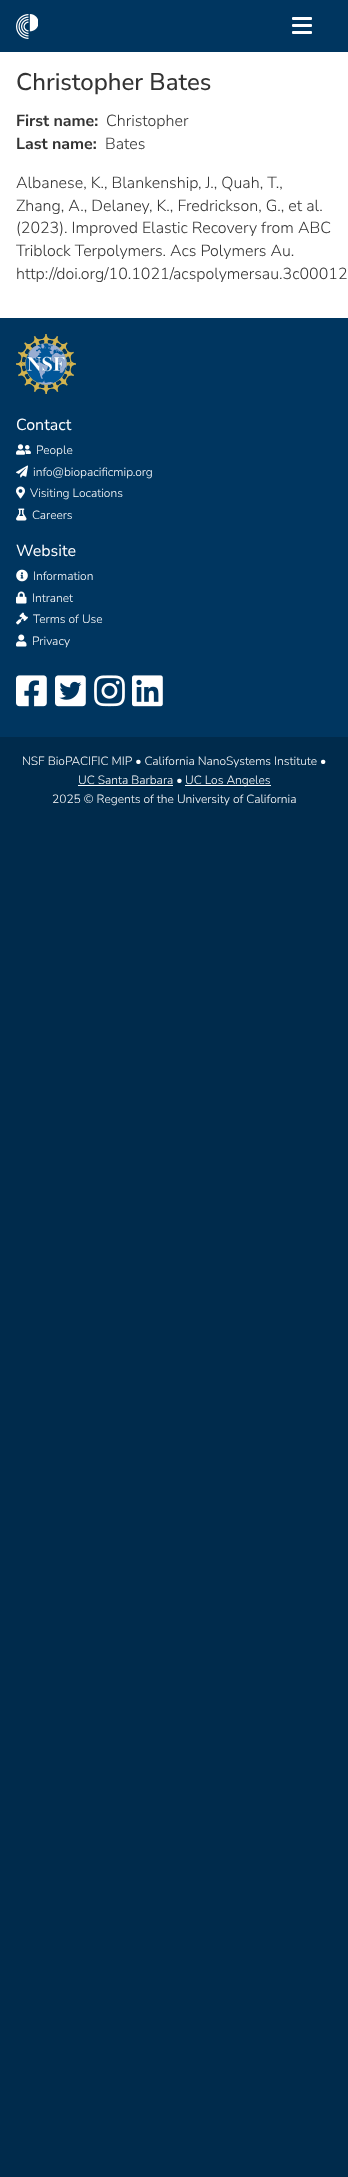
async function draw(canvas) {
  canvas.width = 348
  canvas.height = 2177
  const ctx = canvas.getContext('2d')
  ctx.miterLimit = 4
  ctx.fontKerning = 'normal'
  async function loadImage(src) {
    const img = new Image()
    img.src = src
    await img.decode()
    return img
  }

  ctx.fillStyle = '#002b4c'
  ctx.fillRect(0, 0, 348, 2177)
  ctx.fillStyle = '#003660'
  ctx.fillRect(0, 0, 348, 52)
  ctx.drawImage(await loadImage('image0.png'), 16, 14, 22, 25)
  ctx.fillStyle = '#fff'
  ctx.beginPath()
  ctx.roundRect(292, 17, 20, 3, 1)
  ctx.fill()
  ctx.beginPath()
  ctx.roundRect(292, 24, 20, 3, 1)
  ctx.fill()
  ctx.beginPath()
  ctx.roundRect(292, 31, 20, 3, 1)
  ctx.fill()
  ctx.fillRect(0, 52, 348, 266)
  ctx.font = '500 24px Nunito Sans'
  ctx.fillStyle = '#333'
  ctx.fillText('Christopher Bates', 16, 90)
  ctx.font = 'bold 16px Nunito Sans'
  ctx.fillText('First name:', 16, 126)
  ctx.font = '300 16px Nunito Sans'
  ctx.fillText('Christopher', 106, 126)
  ctx.font = 'bold 16px Nunito Sans'
  ctx.fillText('Last name:', 16, 149)
  ctx.font = '300 16px Nunito Sans'
  ctx.fillText('Bates', 105, 149)
  ctx.fillText('Albanese, K., Blankenship, J., Quah, T.,', 16, 188)
  ctx.fillText('Zhang, A., Delaney, K., Fredrickson, G., et al.', 16, 211)
  ctx.fillText('(2023). Improved Elastic Recovery from ABC', 16, 233)
  ctx.fillText('Triblock Terpolymers. Acs Polymers Au.', 16, 256)
  ctx.fillText('http://doi.org/10.1021/acspolymersau.3c00012', 16, 279)
  ctx.fillStyle = '#003660'
  ctx.fillRect(0, 318, 348, 419)
  ctx.drawImage(await loadImage('image1.png'), 16, 334, 60, 60)
  ctx.font = '16px Nunito Sans'
  ctx.fillStyle = '#fff'
  ctx.fillText('Contact', 16, 430)
  ctx.drawImage(await loadImage('image2.png'), 16, 444, 15, 11)
  ctx.font = '300 12px Nunito Sans'
  ctx.fillText('People', 36, 454)
  ctx.drawImage(await loadImage('image3.png'), 16, 465, 12, 13)
  ctx.fillText('info@biopacificmip.org', 33, 476)
  ctx.drawImage(await loadImage('image4.png'), 16, 486, 9, 13)
  ctx.fillText('Visiting Locations', 30, 497)
  ctx.drawImage(await loadImage('image5.png'), 16, 508, 11, 13)
  ctx.fillText('Careers', 32, 519)
  ctx.font = '16px Nunito Sans'
  ctx.fillText('Website', 16, 556)
  ctx.drawImage(await loadImage('image6.png'), 16, 569, 12, 13)
  ctx.font = '300 12px Nunito Sans'
  ctx.fillText('Information', 33, 580)
  ctx.drawImage(await loadImage('image7.png'), 16, 591, 11, 13)
  ctx.fillText('Intranet', 32, 602)
  ctx.drawImage(await loadImage('image8.png'), 16, 612, 12, 13)
  ctx.fillText('Terms of Use', 33, 623)
  ctx.drawImage(await loadImage('image9.png'), 16, 634, 11, 13)
  ctx.fillText('Privacy', 32, 645)
  ctx.drawImage(await loadImage('image10.png'), 16, 675, 31, 32)
  ctx.drawImage(await loadImage('image11.png'), 55, 675, 31, 32)
  ctx.drawImage(await loadImage('image12.png'), 94, 675, 31, 32)
  ctx.drawImage(await loadImage('image13.png'), 132, 675, 31, 32)
  ctx.fillText('NSF BioPACIFIC MIP • California NanoSystems Institute •', 22, 765)
  ctx.fillText('UC Santa Barbara •', 78, 784)
  ctx.fillRect(78, 785, 95, 1)
  ctx.fillRect(185, 785, 86, 1)
  ctx.fillText('UC Los Angeles', 185, 784)
  ctx.fillText('2025 © Regents of the University of California', 52, 803)
}

draw(document.querySelector('canvas'))
